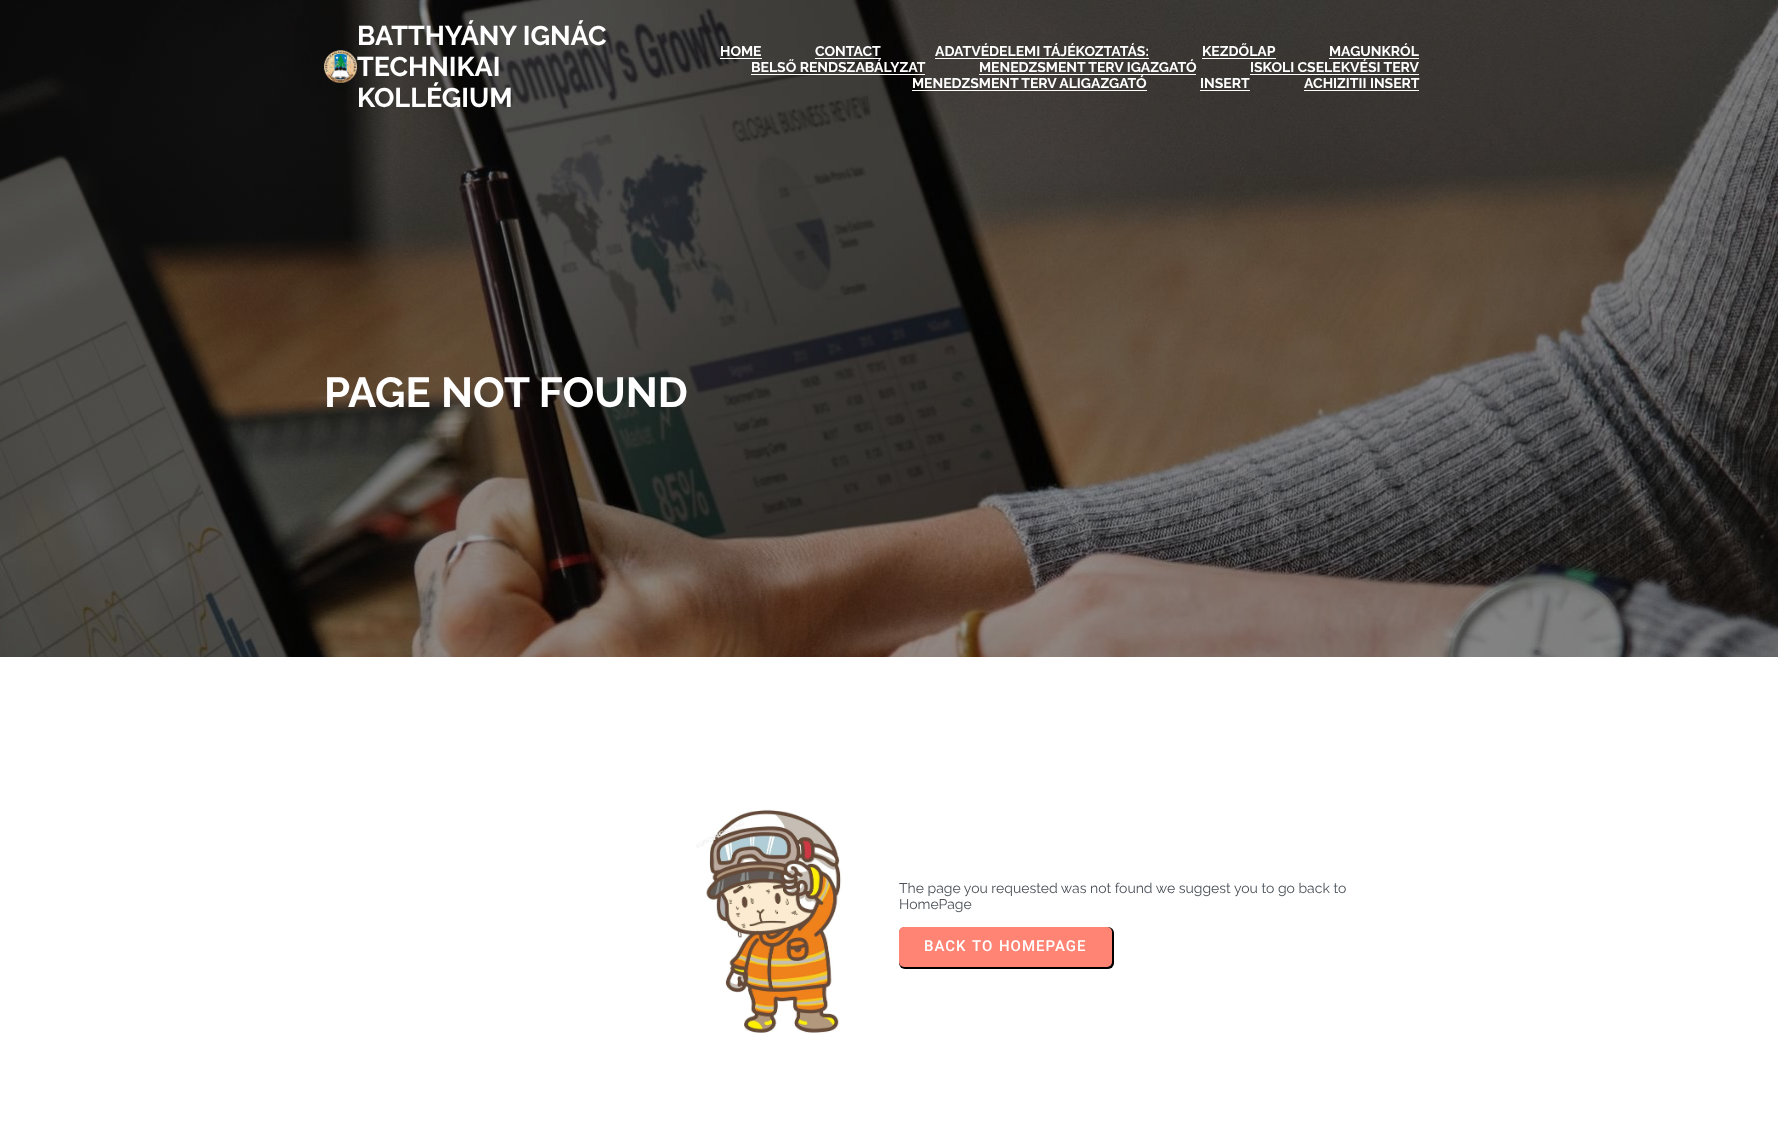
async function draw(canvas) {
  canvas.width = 1778
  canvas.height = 1143
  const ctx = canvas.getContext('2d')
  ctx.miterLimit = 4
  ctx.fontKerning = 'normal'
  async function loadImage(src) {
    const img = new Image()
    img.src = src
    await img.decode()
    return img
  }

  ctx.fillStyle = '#fff'
  ctx.fillRect(0, 0, 1778, 1143)
  ctx.drawImage(await loadImage('image0.png'), 0, 0, 1778, 657)
  ctx.drawImage(await loadImage('image1.png'), 324, 50, 33, 33)
  ctx.font = 'bold 27px Raleway'
  ctx.fillText('BATTHYÁNY IGNÁC', 357, 45)
  ctx.fillText('TECHNIKAI', 357, 76)
  ctx.fillText('KOLLÉGIUM', 357, 107)
  ctx.font = 'bold 14px Raleway'
  ctx.fillText('HOME', 720, 56)
  ctx.fillRect(720, 58, 42, 1)
  ctx.fillText('CONTACT', 815, 56)
  ctx.fillRect(815, 58, 66, 1)
  ctx.fillText('ADATVÉDELEMI TÁJÉKOZTATÁS:', 935, 56)
  ctx.fillRect(935, 58, 214, 1)
  ctx.fillText('KEZDŐLAP', 1202, 56)
  ctx.fillRect(1202, 58, 74, 1)
  ctx.fillText('MAGUNKRÓL', 1329, 56)
  ctx.fillRect(1329, 58, 90, 1)
  ctx.fillText('BELSŐ RENDSZABÁLYZAT', 751, 72)
  ctx.fillRect(751, 74, 174, 1)
  ctx.fillText('MENEDZSMENT TERV IGAZGATÓ', 979, 72)
  ctx.fillRect(979, 74, 217, 1)
  ctx.fillText('ISKOLI CSELEKVÉSI TERV', 1250, 72)
  ctx.fillRect(1250, 74, 169, 1)
  ctx.fillText('MENEDZSMENT TERV ALIGAZGATÓ', 912, 88)
  ctx.fillRect(912, 90, 235, 1)
  ctx.fillText('INSERT', 1200, 88)
  ctx.fillRect(1200, 90, 50, 1)
  ctx.fillText('ACHIZITII INSERT', 1304, 88)
  ctx.fillRect(1304, 90, 115, 1)
  ctx.font = 'bold 42px Raleway'
  ctx.fillText('PAGE NOT FOUND', 324, 407)
  ctx.drawImage(await loadImage('image2.png'), 696, 809, 146, 224)
  ctx.font = '14px Raleway'
  ctx.fillStyle = '#495057'
  ctx.fillText('The page you requested was not found we suggest you to go back to', 899, 893)
  ctx.fillText('HomePage', 899, 909)
  ctx.fillStyle = '#000'
  ctx.filter = 'blur(0.5px)'
  ctx.beginPath()
  ctx.roundRect(899, 927, 215, 42, 6)
  ctx.fill()
  ctx.filter = 'none'
  ctx.fillStyle = '#ff8474'
  ctx.beginPath()
  ctx.roundRect(899, 927, 213, 40, 5)
  ctx.fill()
  ctx.letterSpacing = '1px'
  ctx.wordSpacing = '1px'
  ctx.font = '500 15px Roboto'
  ctx.fillStyle = '#fff'
  ctx.fillText('BACK TO HOMEPAGE', 924, 951)
}

draw(document.querySelector('canvas'))
